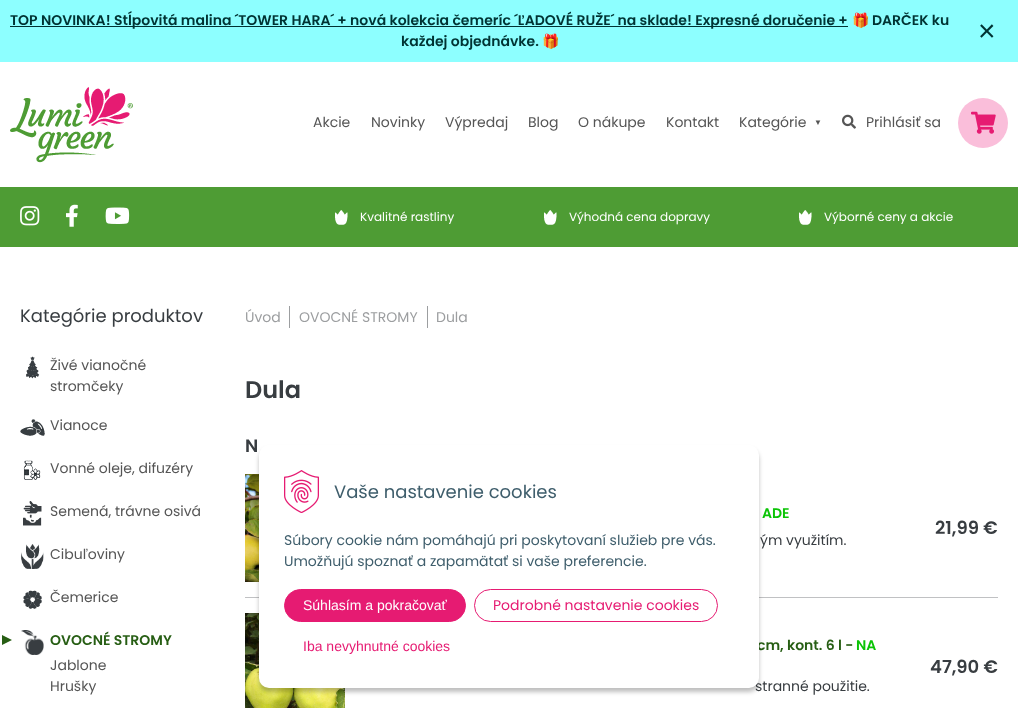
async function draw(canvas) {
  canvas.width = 1018
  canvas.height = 708
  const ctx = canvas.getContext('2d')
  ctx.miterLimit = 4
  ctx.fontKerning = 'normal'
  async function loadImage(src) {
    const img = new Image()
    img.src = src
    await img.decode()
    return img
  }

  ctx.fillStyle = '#fff'
  ctx.fillRect(0, 0, 1018, 708)
  ctx.fillStyle = '#8dffff'
  ctx.fillRect(0, 0, 1018, 62)
  ctx.fillStyle = '#033'
  ctx.fillRect(10, 26, 838, 1)
  ctx.font = '600 14px Poppins'
  ctx.fillText('TOP NOVINKA! Stĺpovitá malina ´TOWER HARA´ + nová kolekcia čemeríc ´ĽADOVÉ RUŽE´ na sklade! Expresné doručenie +', 10, 25)
  ctx.font = '14px Noto Color Emoji'
  ctx.fillText('🎁', 852, 25)
  ctx.font = '600 14px Poppins'
  ctx.fillText('DARČEK ku', 872, 25)
  ctx.fillText('každej objednávke.', 401, 46)
  ctx.font = '14px Noto Color Emoji'
  ctx.fillText('🎁', 542, 46)
  ctx.font = '30px Liberation Sans'
  ctx.fillText('×', 978, 41)
  ctx.drawImage(await loadImage('image0.png'), 10, 87, 123, 76)
  ctx.font = '14px Poppins'
  ctx.fillStyle = '#555'
  ctx.fillText('Akcie', 313, 127)
  ctx.fillText('Novinky', 371, 127)
  ctx.fillText('Výpredaj', 445, 127)
  ctx.fillText('Blog', 528, 127)
  ctx.fillText('O nákupe', 578, 127)
  ctx.fillText('Kontakt', 666, 127)
  ctx.fillText('Kategórie', 739, 127)
  ctx.font = '8px Liberation Sans'
  ctx.fillText('▼', 814, 125)
  ctx.drawImage(await loadImage('image1.png'), 842, 114, 14, 15)
  ctx.font = '14px Poppins'
  ctx.fillText('Prihlásiť sa', 866, 127)
  ctx.fillStyle = '#fabeda'
  ctx.beginPath()
  ctx.arc(983, 123, 25, 0, 2 * Math.PI)
  ctx.fill()
  ctx.drawImage(await loadImage('image2.png'), 971, 111, 25, 23)
  ctx.fillStyle = '#4e9c34'
  ctx.fillRect(0, 187, 1018, 60)
  ctx.drawImage(await loadImage('image3.png'), 20, 206, 20, 20)
  ctx.drawImage(await loadImage('image4.png'), 66, 204, 12, 23)
  ctx.drawImage(await loadImage('image5.png'), 105, 207, 25, 17)
  ctx.drawImage(await loadImage('image6.png'), 335, 210, 13, 15)
  ctx.font = '12px Poppins'
  ctx.fillStyle = '#fff'
  ctx.fillText('Kvalitné rastliny', 360, 221)
  ctx.drawImage(await loadImage('image6.png'), 544, 210, 13, 15)
  ctx.fillText('Výhodná cena dopravy', 569, 221)
  ctx.drawImage(await loadImage('image6.png'), 799, 210, 13, 15)
  ctx.fillText('Výborné ceny a akcie', 824, 221)
  ctx.font = '18px Poppins'
  ctx.fillStyle = '#383d41'
  ctx.fillText('Kategórie produktov', 20, 322)
  ctx.drawImage(await loadImage('image7.png'), 26, 356, 14, 23)
  ctx.font = '14px Poppins'
  ctx.fillStyle = '#555'
  ctx.fillText('Živé vianočné', 50, 370)
  ctx.fillText('stromčeky', 50, 391)
  ctx.drawImage(await loadImage('image8.png'), 20, 419, 25, 17)
  ctx.fillText('Vianoce', 50, 430)
  ctx.drawImage(await loadImage('image9.png'), 23, 460, 18, 20)
  ctx.fillText('Vonné oleje, difuzéry', 50, 473)
  ctx.drawImage(await loadImage('image10.png'), 23, 501, 19, 25)
  ctx.fillText('Semená, trávne osivá', 50, 516)
  ctx.drawImage(await loadImage('image11.png'), 21, 544, 23, 25)
  ctx.fillText('Cibuľoviny', 50, 559)
  ctx.drawImage(await loadImage('image12.png'), 23, 590, 19, 19)
  ctx.fillText('Čemerice', 50, 602)
  ctx.fillStyle = '#275e14'
  ctx.beginPath()
  ctx.moveTo(2, 645)
  ctx.lineTo(2, 635)
  ctx.lineTo(12, 640)
  ctx.closePath()
  ctx.fill()
  ctx.drawImage(await loadImage('image13.png'), 21, 630, 23, 25)
  ctx.font = '600 14px Poppins'
  ctx.fillText('OVOCNÉ STROMY', 50, 645)
  ctx.font = '14px Poppins'
  ctx.fillStyle = '#555'
  ctx.fillText('Jablone', 50, 670)
  ctx.fillText('Hrušky', 50, 691)
  ctx.fillStyle = '#9c9ea0'
  ctx.fillText('Úvod', 245, 322)
  ctx.fillRect(289, 306, 1, 22)
  ctx.fillText('OVOCNÉ STROMY', 299, 322)
  ctx.fillRect(427, 306, 1, 22)
  ctx.fillText('Dula', 436, 322)
  ctx.font = '600 24px Poppins'
  ctx.fillStyle = '#383d41'
  ctx.fillText('Dula', 245, 398)
  ctx.font = '600 18px Poppins'
  ctx.fillText('N', 245, 452)
  ctx.fillStyle = '#c0c1c3'
  ctx.fillRect(245, 597, 753, 1)
  ctx.drawImage(await loadImage('image14.png'), 245, 474, 14, 108)
  ctx.font = '600 14px Poppins'
  ctx.fillStyle = '#0bc406'
  ctx.fillText('ADE', 762, 518)
  ctx.font = '14px Poppins'
  ctx.fillStyle = '#383d41'
  ctx.fillText('ým využitím.', 760, 545)
  ctx.font = '600 18px Poppins'
  ctx.fillText('21,99 €', 935, 534)
  ctx.drawImage(await loadImage('image15.png'), 245, 613, 100, 95)
  ctx.font = '600 14px Poppins'
  ctx.fillStyle = '#275e14'
  ctx.fillText('cm, kont. 6 l -', 757, 650)
  ctx.fillStyle = '#0bc406'
  ctx.fillText('NA', 856, 650)
  ctx.font = '14px Poppins'
  ctx.fillStyle = '#383d41'
  ctx.fillText('stranné použitie.', 755, 691)
  ctx.font = '600 18px Poppins'
  ctx.fillText('47,90 €', 930, 673)
  ctx.fillStyle = '#00000040'
  ctx.filter = 'blur(2px)'
  ctx.beginPath()
  ctx.roundRect(259, 449, 500, 243, 10)
  ctx.fill()
  ctx.filter = 'none'
  ctx.fillStyle = '#fff'
  ctx.beginPath()
  ctx.roundRect(259, 445, 500, 243, 10)
  ctx.fill()
  ctx.drawImage(await loadImage('image16.png'), 284, 470, 35, 43)
  ctx.font = '18px Poppins'
  ctx.fillStyle = '#3f5e6c'
  ctx.fillText('Vaše nastavenie cookies', 334, 498)
  ctx.font = '14px Poppins'
  ctx.fillText('Súbory cookie nám pomáhajú pri poskytovaní služieb pre vás.', 284, 545)
  ctx.fillText('Umožňujú spoznať a zapamätať si vaše preferencie.', 284, 566)
  ctx.fillStyle = '#e61b72'
  ctx.beginPath()
  ctx.roundRect(284.5, 589.5, 181, 32, 16)
  ctx.fill()
  ctx.strokeStyle = '#e61b72'
  ctx.stroke()
  ctx.font = '14px Liberation Sans'
  ctx.fillStyle = '#fff'
  ctx.fillText('Súhlasím a pokračovať', 303, 610)
  ctx.beginPath()
  ctx.roundRect(474.5, 589.5, 243, 32, 16)
  ctx.stroke()
  ctx.font = '14px Poppins'
  ctx.fillStyle = '#e61b72'
  ctx.fillText('Podrobné nastavenie cookies', 493, 610)
  ctx.font = '14px Liberation Sans'
  ctx.fillText('Iba nevyhnutné cookies', 303, 651)
}

draw(document.querySelector('canvas'))
